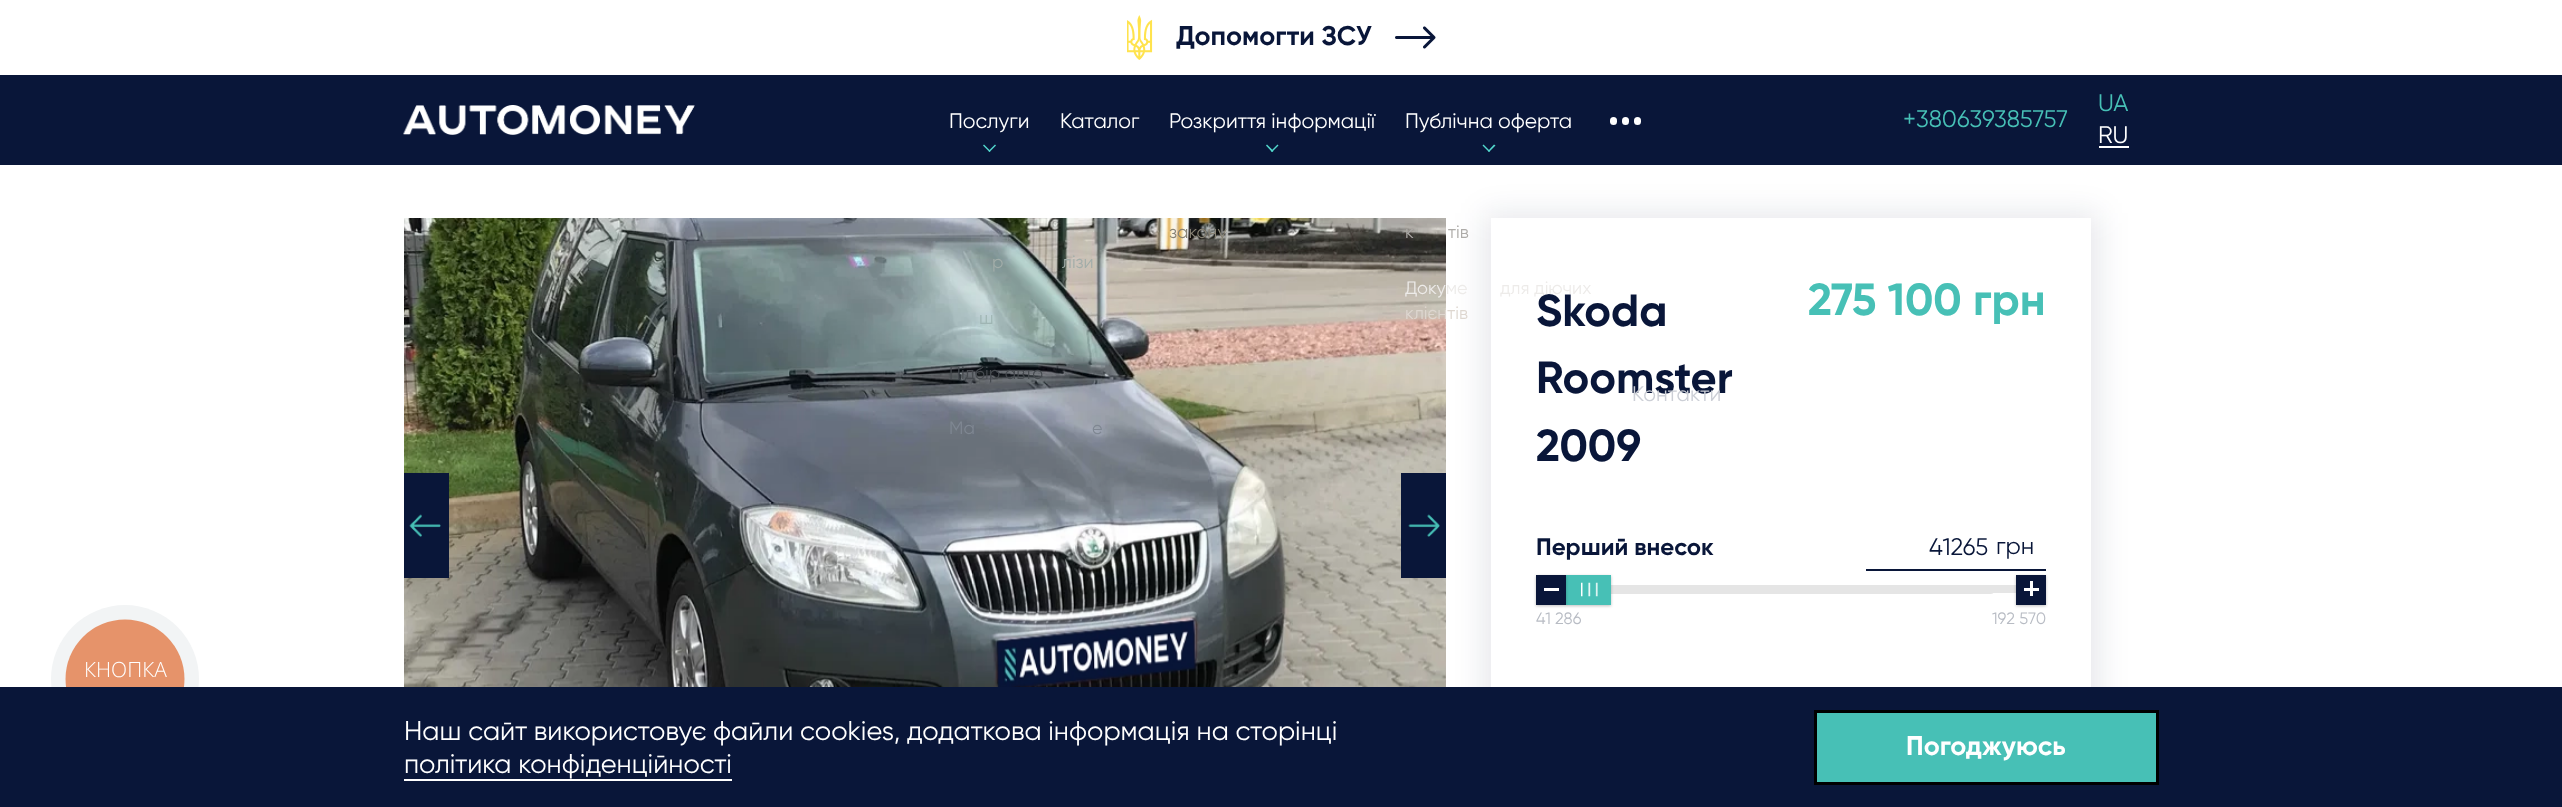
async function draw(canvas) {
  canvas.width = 2562
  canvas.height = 807
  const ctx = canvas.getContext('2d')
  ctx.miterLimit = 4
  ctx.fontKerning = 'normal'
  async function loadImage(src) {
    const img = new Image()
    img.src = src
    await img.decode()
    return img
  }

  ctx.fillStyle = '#fff'
  ctx.fillRect(0, 0, 2562, 807)
  ctx.fillStyle = '#091639'
  ctx.fillRect(0, 75, 2562, 90)
  ctx.drawImage(await loadImage('image0.png'), 1127, 15, 26, 45)
  ctx.font = 'bold 27px Gilroy'
  ctx.fillText('Допомогти ЗСУ', 1176, 45)
  ctx.drawImage(await loadImage('image1.png'), 1395, 26, 41, 23)
  ctx.drawImage(await loadImage('image2.png'), 403, 105, 292, 30)
  ctx.font = '21px Gilroy'
  ctx.fillStyle = '#fff'
  ctx.fillText('Послуги', 949, 128)
  ctx.fillStyle = '#52d8cd'
  ctx.beginPath()
  ctx.moveTo(995, 144.5)
  ctx.lineTo(996, 145.5)
  ctx.lineTo(989.5, 152)
  ctx.lineTo(988.5, 151)
  ctx.closePath()
  ctx.fill()
  ctx.beginPath()
  ctx.moveTo(984, 144.5)
  ctx.lineTo(990.5, 151)
  ctx.lineTo(989.5, 152)
  ctx.lineTo(983, 145.5)
  ctx.closePath()
  ctx.fill()
  ctx.drawImage(await loadImage('image3.png'), 404, 218, 1042, 469)
  ctx.font = '18px Gilroy'
  ctx.fillStyle = '#a2ada9'
  ctx.fillText('р', 992, 268)
  ctx.fillText('лізи', 1062, 268)
  ctx.fillStyle = '#9fb5b3'
  ctx.fillText('ш', 979, 324)
  ctx.fillStyle = '#464a4f'
  ctx.fillText('Підбір авто', 949, 379)
  ctx.fillStyle = '#7f8792'
  ctx.fillText('Ма', 949, 434)
  ctx.fillText('е', 1092, 434)
  ctx.font = '21px Gilroy'
  ctx.fillStyle = '#fff'
  ctx.fillText('Каталог', 1060, 128)
  ctx.fillText('Розкриття інформації', 1169, 128)
  ctx.fillStyle = '#52d8cd'
  ctx.beginPath()
  ctx.moveTo(1277.5, 144.5)
  ctx.lineTo(1278.5, 145.5)
  ctx.lineTo(1272, 152)
  ctx.lineTo(1271, 151)
  ctx.closePath()
  ctx.fill()
  ctx.beginPath()
  ctx.moveTo(1267, 144.5)
  ctx.lineTo(1273.5, 151)
  ctx.lineTo(1272, 152)
  ctx.lineTo(1266, 145.5)
  ctx.closePath()
  ctx.fill()
  ctx.font = '18px Gilroy'
  ctx.fillStyle = '#878274'
  ctx.fillText('закону', 1169, 238)
  ctx.font = '21px Gilroy'
  ctx.fillStyle = '#fff'
  ctx.fillText('Публічна оферта', 1405, 128)
  ctx.fillStyle = '#52d8cd'
  ctx.beginPath()
  ctx.moveTo(1494, 144.5)
  ctx.lineTo(1495.5, 145.5)
  ctx.lineTo(1489, 152)
  ctx.lineTo(1488, 151)
  ctx.closePath()
  ctx.fill()
  ctx.beginPath()
  ctx.moveTo(1483.5, 144.5)
  ctx.lineTo(1490, 151)
  ctx.lineTo(1489, 152)
  ctx.lineTo(1482.5, 145.5)
  ctx.closePath()
  ctx.fill()
  ctx.font = '18px Gilroy'
  ctx.fillStyle = '#adaba8'
  ctx.fillText('к', 1405, 238)
  ctx.save()
  ctx.beginPath()
  ctx.moveTo(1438, 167)
  ctx.lineTo(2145, 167)
  ctx.lineTo(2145, 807)
  ctx.lineTo(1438, 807)
  ctx.closePath()
  ctx.moveTo(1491, 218)
  ctx.lineTo(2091, 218)
  ctx.lineTo(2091, 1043)
  ctx.lineTo(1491, 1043)
  ctx.closePath()
  ctx.clip('evenodd')
  ctx.fillStyle = '#0916391a'
  ctx.filter = 'blur(15px)'
  ctx.beginPath()
  ctx.rect(1484, 213, 615, 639)
  ctx.fill()
  ctx.filter = 'none'
  ctx.restore()
  ctx.fillText('тів', 1448, 238)
  ctx.fillStyle = '#edebe9'
  ctx.fillText('Докуме', 1405, 294)
  ctx.fillText('для дiючих', 1500, 294)
  ctx.fillStyle = '#ded7d0'
  ctx.fillText('клiєнтiв', 1405, 319)
  ctx.fillStyle = '#fff'
  ctx.beginPath()
  ctx.roundRect(1610, 117, 7, 8, 3.5)
  ctx.fill()
  ctx.beginPath()
  ctx.roundRect(1622, 117, 7, 8, 3.5)
  ctx.fill()
  ctx.beginPath()
  ctx.roundRect(1634, 117, 7, 8, 3.5)
  ctx.fill()
  ctx.font = 'bold 45px Gilroy'
  ctx.fillStyle = '#091639'
  ctx.fillText('Roomster', 1536, 393)
  ctx.font = '21px Gilroy'
  ctx.fillStyle = '#cccfd6'
  ctx.fillText('Контакти', 1632, 401)
  ctx.font = '24px Gilroy'
  ctx.fillStyle = '#47c0b6'
  ctx.fillText('+380639385757', 1903, 127)
  ctx.fillText('UA', 2098, 111)
  ctx.fillStyle = '#fff'
  ctx.fillText('RU', 2098, 143)
  ctx.fillRect(2099, 146, 30, 2)
  ctx.fillStyle = '#091639'
  ctx.fillRect(404, 473, 45, 105)
  ctx.drawImage(await loadImage('image4.png'), 409, 514, 32, 23)
  ctx.fillRect(1401, 473, 45, 105)
  ctx.drawImage(await loadImage('image5.png'), 1408, 514, 32, 23)
  ctx.font = 'bold 45px Gilroy'
  ctx.fillText('Skoda', 1536, 326)
  ctx.fillText('2009', 1536, 461)
  ctx.fillStyle = '#47c0b6'
  ctx.fillText('275 100 грн', 1808, 315)
  ctx.font = 'bold 24px Gilroy'
  ctx.fillStyle = '#091639'
  ctx.fillText('Перший внесок', 1536, 555)
  ctx.fillRect(1866, 569, 180, 2)
  ctx.font = '24px Gilroy'
  ctx.fillText('41265', 1929, 555)
  ctx.fillText('грн', 1996, 554)
  ctx.fillStyle = '#e5e5e5'
  ctx.fillRect(1611, 585, 405, 8)
  ctx.beginPath()
  ctx.roundRect(1589, 587, 405, 7, 3.5)
  ctx.fill()
  ctx.fillStyle = '#00000040'
  ctx.filter = 'blur(1.5px)'
  ctx.beginPath()
  ctx.rect(1566, 576, 45, 30)
  ctx.fill()
  ctx.filter = 'none'
  ctx.fillStyle = '#47c0b6'
  ctx.fillRect(1566, 575, 45, 30)
  ctx.fillStyle = '#00000040'
  ctx.filter = 'blur(1.5px)'
  ctx.beginPath()
  ctx.rect(1536, 576, 30, 30)
  ctx.fill()
  ctx.filter = 'none'
  ctx.fillStyle = '#091639'
  ctx.fillRect(1536, 575, 30, 30)
  ctx.fillStyle = '#fff'
  ctx.fillRect(1544, 588, 15, 3)
  ctx.drawImage(await loadImage('image6.png'), 1581, 582, 17, 15)
  ctx.fillStyle = '#00000040'
  ctx.filter = 'blur(1.5px)'
  ctx.beginPath()
  ctx.rect(2016, 576, 30, 30)
  ctx.fill()
  ctx.filter = 'none'
  ctx.fillStyle = '#091639'
  ctx.fillRect(2016, 575, 30, 30)
  ctx.fillStyle = '#fff'
  ctx.fillRect(2024, 588, 15, 3)
  ctx.fillRect(2030, 581, 3, 15)
  ctx.font = '16.5px Gilroy'
  ctx.fillStyle = '#b8bcc4'
  ctx.fillText('41 286', 1536, 624)
  ctx.fillText('192 570', 1992, 624)
  ctx.fillStyle = '#f2f4f5'
  ctx.beginPath()
  ctx.arc(125, 679, 74, 0, 2 * Math.PI)
  ctx.fill()
  ctx.fillStyle = '#e6936a'
  ctx.beginPath()
  ctx.arc(125, 679, 59.5, 0, 2 * Math.PI)
  ctx.fill()
  ctx.font = '300 21px Open Sans'
  ctx.fillStyle = '#fff'
  ctx.fillText('КНОПКА', 84, 677)
  ctx.fillStyle = '#091639'
  ctx.fillRect(0, 687, 2562, 120)
  ctx.font = '27px Gilroy'
  ctx.fillStyle = '#fff'
  ctx.fillText('Наш сайт використовує файли cookies, додаткова інформація на сторінці', 404, 740)
  ctx.fillText('політика конфіденційності', 404, 773)
  ctx.fillRect(404, 779, 328, 2)
  ctx.fillStyle = '#47c0b6'
  ctx.beginPath()
  ctx.rect(1815.5, 711.5, 342, 72)
  ctx.fill()
  ctx.strokeStyle = '#000'
  ctx.lineWidth = 3
  ctx.stroke()
  ctx.font = 'bold 27px Gilroy'
  ctx.fillStyle = '#fff'
  ctx.fillText('Погоджуюсь', 1906, 755)
}

draw(document.querySelector('canvas'))
